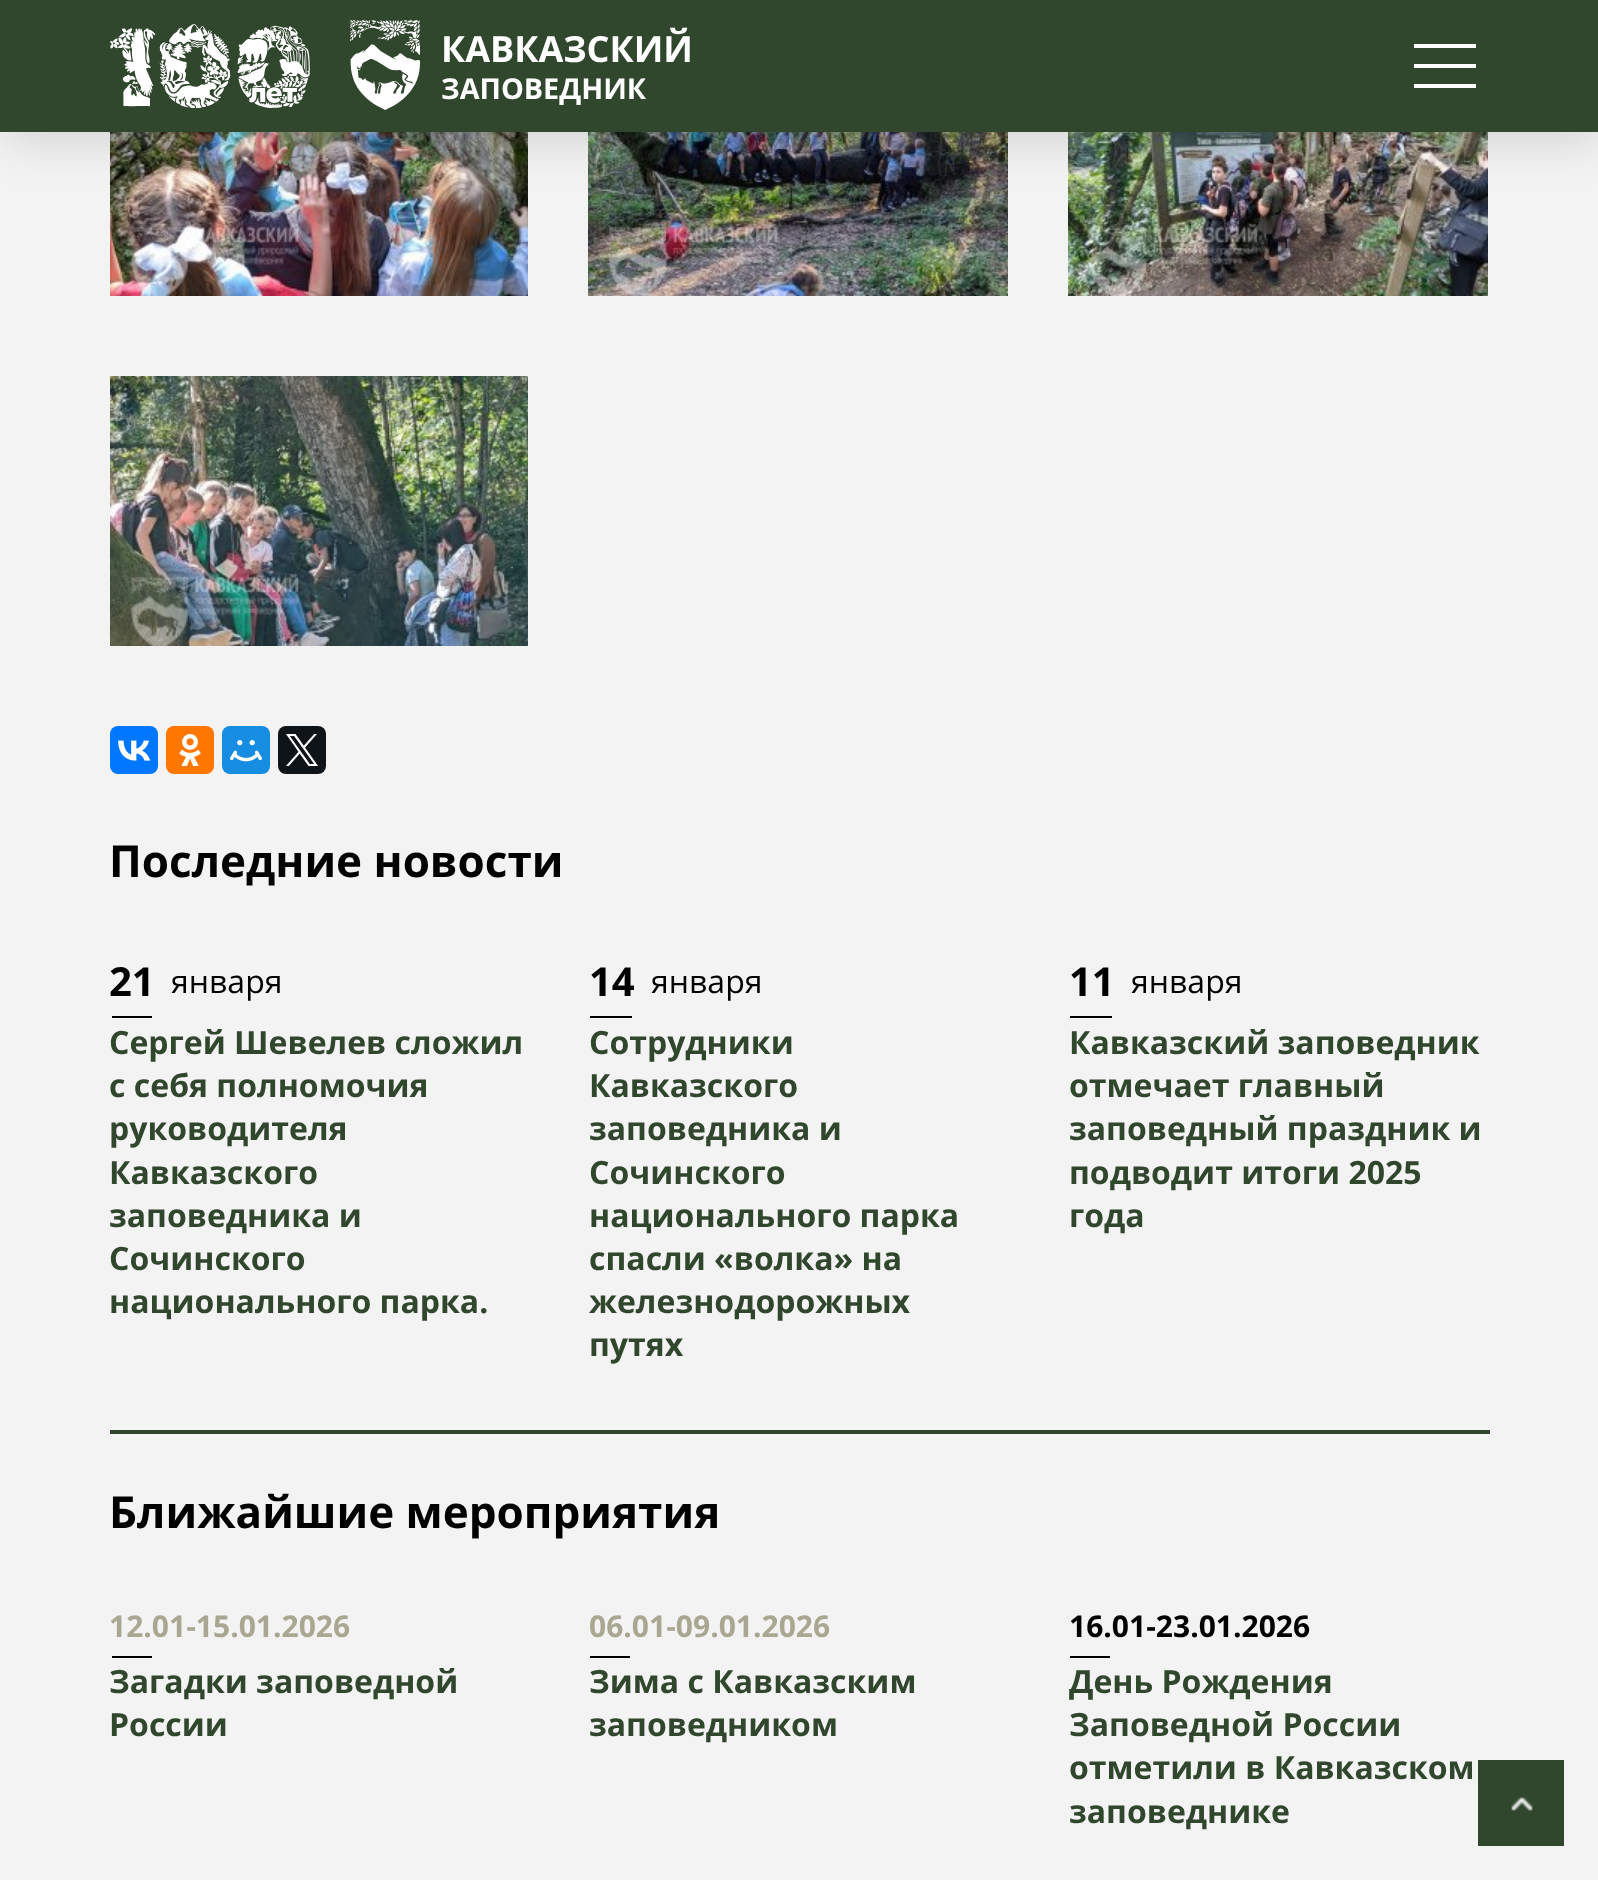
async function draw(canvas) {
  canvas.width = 1598
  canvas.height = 1880
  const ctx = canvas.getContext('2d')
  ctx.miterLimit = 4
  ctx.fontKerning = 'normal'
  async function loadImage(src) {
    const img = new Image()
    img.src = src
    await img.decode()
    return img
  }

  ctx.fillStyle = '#f3f3f3'
  ctx.fillRect(0, 0, 1598, 1880)
  ctx.drawImage(await loadImage('image2.png'), 110, 132, 418, 164)
  ctx.drawImage(await loadImage('image3.png'), 588, 132, 420, 164)
  ctx.drawImage(await loadImage('image4.png'), 1068, 132, 420, 164)
  ctx.fillStyle = '#00000026'
  ctx.filter = 'blur(25px)'
  ctx.beginPath()
  ctx.rect(4, 6, 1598, 132)
  ctx.fill()
  ctx.filter = 'none'
  ctx.fillStyle = '#30462d'
  ctx.fillRect(0, 0, 1598, 132)
  ctx.drawImage(await loadImage('image0.png'), 110, 24, 200, 84)
  ctx.drawImage(await loadImage('image1.png'), 350, 20, 70, 90)
  ctx.font = 'bold 36px Open Sans'
  ctx.fillStyle = '#fff'
  ctx.fillText('КАВКАЗСКИЙ', 441, 62)
  ctx.font = 'bold 28.75px Open Sans'
  ctx.fillText('ЗАПОВЕДНИК', 441, 99)
  ctx.fillRect(1414, 44, 62, 4)
  ctx.fillRect(1414, 64, 62, 4)
  ctx.fillRect(1414, 84, 62, 4)
  ctx.drawImage(await loadImage('image5.png'), 110, 376, 418, 270)
  ctx.fillStyle = '#07f'
  ctx.beginPath()
  ctx.roundRect(110, 726, 48, 48, 8)
  ctx.fill()
  ctx.drawImage(await loadImage('image6.png'), 118, 740, 33, 21)
  ctx.fillStyle = '#f70'
  ctx.beginPath()
  ctx.roundRect(166, 726, 48, 48, 8)
  ctx.fill()
  ctx.drawImage(await loadImage('image7.png'), 179, 734, 22, 32)
  ctx.fillStyle = '#168de2'
  ctx.beginPath()
  ctx.roundRect(222, 726, 48, 48, 8)
  ctx.fill()
  ctx.drawImage(await loadImage('image8.png'), 230, 740, 32, 22)
  ctx.fillStyle = '#0f1419'
  ctx.beginPath()
  ctx.roundRect(278, 726, 48, 48, 8)
  ctx.fill()
  ctx.drawImage(await loadImage('image9.png'), 286, 734, 32, 32)
  ctx.fillStyle = '#30462d'
  ctx.fillRect(110, 1430, 1380, 4)
  ctx.font = 'bold 44px Open Sans'
  ctx.fillStyle = '#010101'
  ctx.fillText('Последние новости', 109, 877)
  ctx.font = 'bold 40px Open Sans'
  ctx.fillText('21', 109, 996)
  ctx.fillStyle = '#000'
  ctx.fillRect(112, 1016, 40, 2)
  ctx.font = '32px Open Sans'
  ctx.fillStyle = '#010101'
  ctx.fillText('января', 171, 993)
  ctx.font = 'bold 32px Open Sans'
  ctx.fillStyle = '#30462d'
  ctx.fillText('Сергей Шевелев сложил', 109, 1054)
  ctx.fillText('с себя полномочия', 109, 1097)
  ctx.fillText('руководителя', 109, 1140)
  ctx.fillText('Кавказского', 109, 1184)
  ctx.fillText('заповедника и', 109, 1227)
  ctx.fillText('Сочинского', 109, 1270)
  ctx.fillText('национального парка.', 109, 1313)
  ctx.font = 'bold 40px Open Sans'
  ctx.fillStyle = '#010101'
  ctx.fillText('14', 589, 996)
  ctx.fillStyle = '#000'
  ctx.fillRect(590, 1016, 42, 2)
  ctx.font = '32px Open Sans'
  ctx.fillStyle = '#010101'
  ctx.fillText('января', 651, 993)
  ctx.font = 'bold 32px Open Sans'
  ctx.fillStyle = '#30462d'
  ctx.fillText('Сотрудники', 589, 1054)
  ctx.fillText('Кавказского', 589, 1097)
  ctx.fillText('заповедника и', 589, 1140)
  ctx.fillText('Сочинского', 589, 1184)
  ctx.fillText('национального парка', 589, 1227)
  ctx.fillText('спасли «волка» на', 589, 1270)
  ctx.fillText('железнодорожных', 589, 1313)
  ctx.fillText('путях', 589, 1356)
  ctx.font = 'bold 40px Open Sans'
  ctx.fillStyle = '#010101'
  ctx.fillText('11', 1069, 996)
  ctx.fillStyle = '#000'
  ctx.fillRect(1070, 1016, 42, 2)
  ctx.font = '32px Open Sans'
  ctx.fillStyle = '#010101'
  ctx.fillText('января', 1131, 993)
  ctx.font = 'bold 32px Open Sans'
  ctx.fillStyle = '#30462d'
  ctx.fillText('Кавказский заповедник', 1069, 1054)
  ctx.fillText('отмечает главный', 1069, 1097)
  ctx.fillText('заповедный праздник и', 1069, 1140)
  ctx.fillText('подводит итоги 2025', 1069, 1184)
  ctx.fillText('года', 1069, 1227)
  ctx.font = 'bold 44px Open Sans'
  ctx.fillStyle = '#010101'
  ctx.fillText('Ближайшие мероприятия', 109, 1528)
  ctx.font = 'bold 30px Open Sans'
  ctx.fillStyle = '#a9a791'
  ctx.fillText('12.01-15.01.2026', 109, 1637)
  ctx.fillStyle = '#000'
  ctx.fillRect(112, 1656, 40, 2)
  ctx.font = 'bold 32px Open Sans'
  ctx.fillStyle = '#30462d'
  ctx.fillText('Загадки заповедной', 109, 1693)
  ctx.fillText('России', 109, 1736)
  ctx.font = 'bold 30px Open Sans'
  ctx.fillStyle = '#a9a791'
  ctx.fillText('06.01-09.01.2026', 589, 1637)
  ctx.fillStyle = '#000'
  ctx.fillRect(590, 1656, 40, 2)
  ctx.font = 'bold 32px Open Sans'
  ctx.fillStyle = '#30462d'
  ctx.fillText('Зима с Кавказским', 589, 1693)
  ctx.fillText('заповедником', 589, 1736)
  ctx.font = 'bold 30px Open Sans'
  ctx.fillStyle = '#010101'
  ctx.fillText('16.01-23.01.2026', 1069, 1637)
  ctx.fillStyle = '#000'
  ctx.fillRect(1070, 1656, 40, 2)
  ctx.font = 'bold 32px Open Sans'
  ctx.fillStyle = '#30462d'
  ctx.fillText('День Рождения', 1069, 1693)
  ctx.fillText('Заповедной России', 1069, 1736)
  ctx.fillText('отметили в Кавказском', 1069, 1779)
  ctx.fillText('заповеднике', 1069, 1823)
  ctx.fillRect(1478, 1760, 86, 86)
  ctx.drawImage(await loadImage('image10.png'), 1511, 1797, 22, 14)
}

draw(document.querySelector('canvas'))
